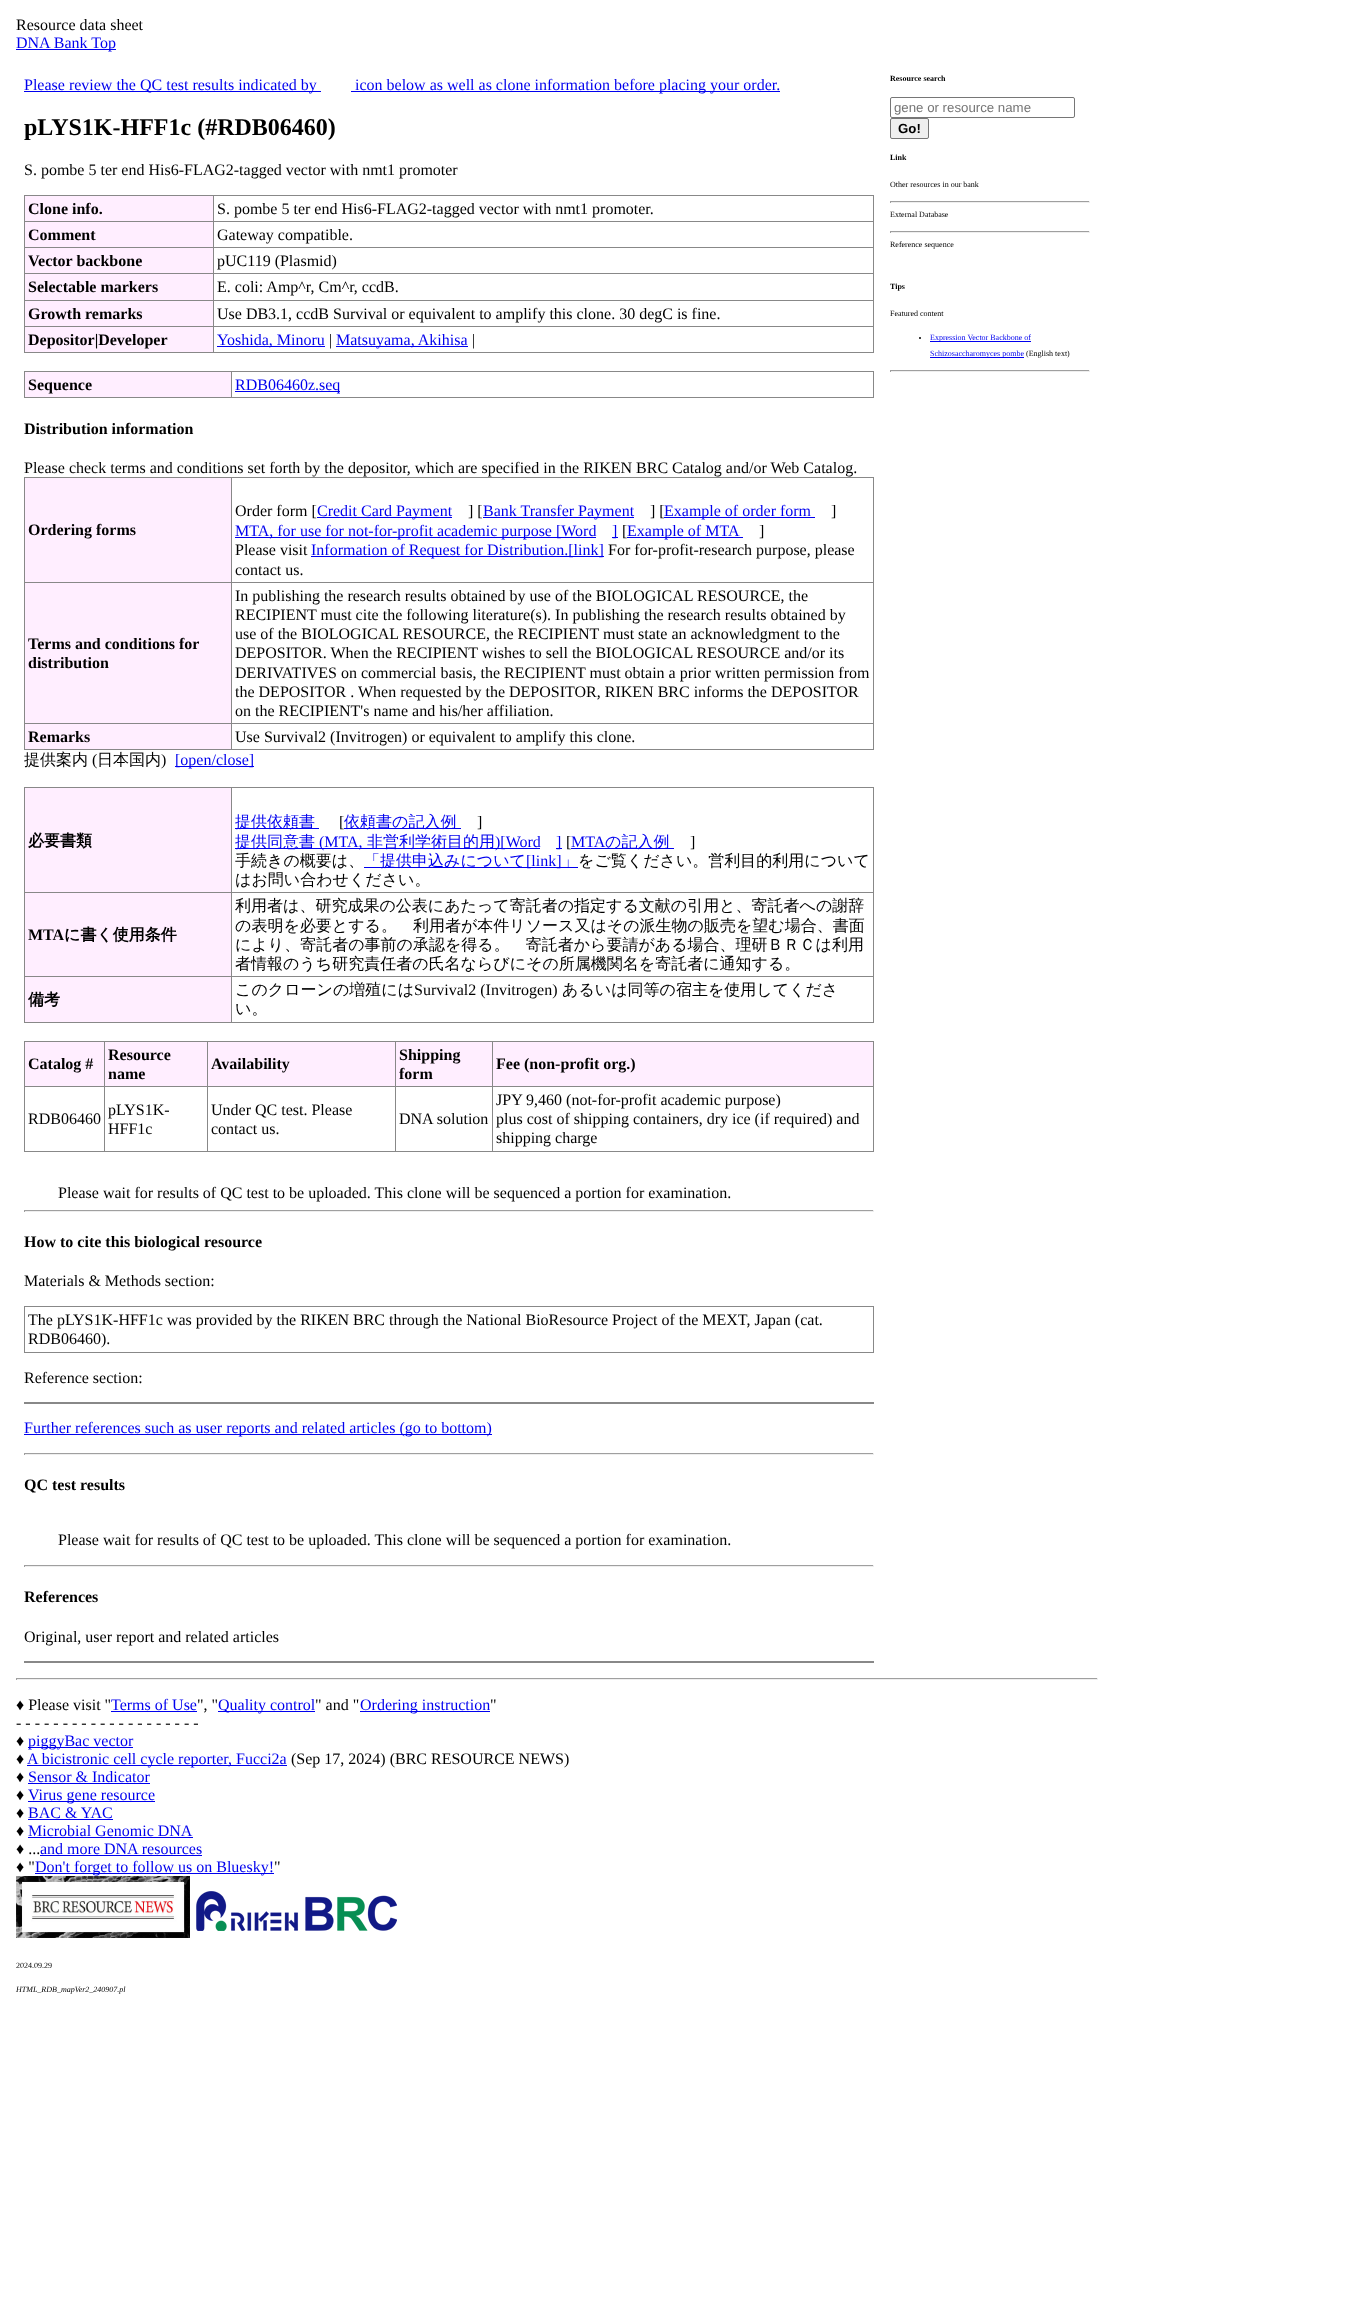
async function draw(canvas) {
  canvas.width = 1358
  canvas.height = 2322
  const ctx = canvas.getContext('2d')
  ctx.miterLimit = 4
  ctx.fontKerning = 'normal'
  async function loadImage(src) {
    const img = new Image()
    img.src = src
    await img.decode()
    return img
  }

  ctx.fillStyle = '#fff'
  ctx.fillRect(0, 0, 1358, 2322)
  ctx.font = '16px Liberation Serif'
  ctx.fillStyle = '#000'
  ctx.fillText('Resource data sheet', 16, 30)
  ctx.fillStyle = '#00e'
  ctx.fillRect(16, 49, 100, 1)
  ctx.fillText('DNA Bank Top', 16, 48)
  ctx.fillRect(24, 91, 297, 1)
  ctx.fillText('Please review the QC test results indicated by', 24, 90)
  ctx.fillRect(351, 91, 429, 1)
  ctx.fillText('icon below as well as clone information before placing your order.', 355, 90)
  ctx.font = 'bold 24px Liberation Serif'
  ctx.fillStyle = '#000'
  ctx.fillText('pLYS1K-HFF1c (#RDB06460)', 24, 135)
  ctx.font = '16px Liberation Serif'
  ctx.fillText('S. pombe 5 ter end His6-FLAG2-tagged vector with nmt1 promoter', 24, 175)
  ctx.fillStyle = '#888'
  ctx.fillRect(24, 195, 850, 1)
  ctx.fillRect(873, 195, 1, 158)
  ctx.fillRect(24, 352, 850, 1)
  ctx.fillRect(24, 195, 1, 158)
  ctx.fillStyle = '#fef'
  ctx.fillRect(25, 196, 188, 25)
  ctx.font = 'bold 16px Liberation Serif'
  ctx.fillStyle = '#000'
  ctx.fillText('Clone info.', 28, 214)
  ctx.fillStyle = '#888'
  ctx.fillRect(213, 221, 661, 1)
  ctx.fillRect(213, 247, 661, 1)
  ctx.fillRect(213, 273, 661, 1)
  ctx.fillRect(213, 300, 661, 1)
  ctx.fillRect(213, 326, 661, 1)
  ctx.fillRect(213, 326, 1, 27)
  ctx.fillRect(24, 326, 190, 1)
  ctx.fillRect(213, 300, 1, 27)
  ctx.fillRect(24, 300, 190, 1)
  ctx.fillRect(213, 273, 1, 28)
  ctx.fillRect(24, 273, 190, 1)
  ctx.fillRect(213, 247, 1, 27)
  ctx.fillRect(24, 247, 190, 1)
  ctx.fillRect(213, 221, 1, 27)
  ctx.fillRect(24, 221, 190, 1)
  ctx.fillRect(213, 195, 1, 27)
  ctx.font = '16px Liberation Serif'
  ctx.fillStyle = '#000'
  ctx.fillText('S. pombe 5 ter end His6-FLAG2-tagged vector with nmt1 promoter.', 217, 214)
  ctx.fillStyle = '#fef'
  ctx.fillRect(25, 222, 188, 25)
  ctx.font = 'bold 16px Liberation Serif'
  ctx.fillStyle = '#000'
  ctx.fillText('Comment', 28, 240)
  ctx.font = '16px Liberation Serif'
  ctx.fillText('Gateway compatible.', 217, 240)
  ctx.fillStyle = '#fef'
  ctx.fillRect(25, 248, 188, 25)
  ctx.font = 'bold 16px Liberation Serif'
  ctx.fillStyle = '#000'
  ctx.fillText('Vector backbone', 28, 266)
  ctx.font = '16px Liberation Serif'
  ctx.fillText('pUC119 (Plasmid)', 217, 266)
  ctx.fillStyle = '#fef'
  ctx.fillRect(25, 274, 188, 26)
  ctx.font = 'bold 16px Liberation Serif'
  ctx.fillStyle = '#000'
  ctx.fillText('Selectable markers', 28, 292)
  ctx.font = '16px Liberation Serif'
  ctx.fillText('E. coli: Amp^r, Cm^r, ccdB.', 217, 292)
  ctx.fillStyle = '#fef'
  ctx.fillRect(25, 301, 188, 25)
  ctx.font = 'bold 16px Liberation Serif'
  ctx.fillStyle = '#000'
  ctx.fillText('Growth remarks', 28, 319)
  ctx.font = '16px Liberation Serif'
  ctx.fillText('Use DB3.1, ccdB Survival or equivalent to amplify this clone. 30 degC is fine.', 217, 319)
  ctx.fillStyle = '#fef'
  ctx.fillRect(25, 327, 188, 25)
  ctx.font = 'bold 16px Liberation Serif'
  ctx.fillStyle = '#000'
  ctx.fillText('Depositor|Developer', 28, 345)
  ctx.fillStyle = '#00e'
  ctx.fillRect(217, 346, 108, 1)
  ctx.font = '16px Liberation Serif'
  ctx.fillText('Yoshida, Minoru', 217, 345)
  ctx.fillStyle = '#000'
  ctx.fillText('|', 329, 345)
  ctx.fillStyle = '#00e'
  ctx.fillRect(336, 346, 132, 1)
  ctx.fillText('Matsuyama, Akihisa', 336, 345)
  ctx.fillStyle = '#000'
  ctx.fillText('|', 472, 345)
  ctx.fillStyle = '#888'
  ctx.fillRect(24, 371, 850, 1)
  ctx.fillRect(873, 371, 1, 27)
  ctx.fillRect(24, 397, 850, 1)
  ctx.fillRect(24, 371, 1, 27)
  ctx.fillStyle = '#fef'
  ctx.fillRect(25, 372, 206, 25)
  ctx.font = 'bold 16px Liberation Serif'
  ctx.fillStyle = '#000'
  ctx.fillText('Sequence', 28, 390)
  ctx.fillStyle = '#888'
  ctx.fillRect(231, 371, 1, 27)
  ctx.fillStyle = '#00e'
  ctx.fillRect(235, 391, 105, 1)
  ctx.font = '16px Liberation Serif'
  ctx.fillText('RDB06460z.seq', 235, 390)
  ctx.font = 'bold 16px Liberation Serif'
  ctx.fillStyle = '#000'
  ctx.fillText('Distribution information', 24, 434)
  ctx.font = '16px Liberation Serif'
  ctx.fillText('Please check terms and conditions set forth by the depositor, which are specified in the RIKEN BRC Catalog and/or Web Catalog.', 24, 473)
  ctx.fillStyle = '#888'
  ctx.fillRect(24, 477, 850, 1)
  ctx.fillRect(873, 477, 1, 273)
  ctx.fillRect(24, 749, 850, 1)
  ctx.fillRect(24, 477, 1, 273)
  ctx.fillStyle = '#fef'
  ctx.fillRect(25, 478, 206, 104)
  ctx.font = 'bold 16px Liberation Serif'
  ctx.fillStyle = '#000'
  ctx.fillText('Ordering forms', 28, 535)
  ctx.fillStyle = '#888'
  ctx.fillRect(231, 582, 643, 1)
  ctx.fillRect(231, 723, 643, 1)
  ctx.fillRect(231, 723, 1, 27)
  ctx.fillRect(24, 723, 208, 1)
  ctx.fillRect(231, 582, 1, 142)
  ctx.fillRect(24, 582, 208, 1)
  ctx.fillRect(231, 477, 1, 106)
  ctx.font = '16px Liberation Serif'
  ctx.fillStyle = '#000'
  ctx.fillText('Order form [', 235, 516)
  ctx.fillStyle = '#00e'
  ctx.fillRect(317, 517, 135, 1)
  ctx.fillText('Credit Card Payment', 317, 516)
  ctx.fillStyle = '#000'
  ctx.fillText('] [', 468, 516)
  ctx.fillStyle = '#00e'
  ctx.fillRect(483, 517, 151, 1)
  ctx.fillText('Bank Transfer Payment', 483, 516)
  ctx.fillStyle = '#000'
  ctx.fillText('] [', 650, 516)
  ctx.fillStyle = '#00e'
  ctx.fillRect(664, 517, 151, 1)
  ctx.fillText('Example of order form', 664, 516)
  ctx.fillStyle = '#000'
  ctx.fillText(']', 831, 516)
  ctx.fillStyle = '#00e'
  ctx.fillRect(235, 537, 361, 1)
  ctx.fillText('MTA, for use for not-for-profit academic purpose [Word', 235, 536)
  ctx.fillRect(612, 537, 6, 1)
  ctx.fillText(']', 612, 536)
  ctx.fillStyle = '#000'
  ctx.fillText('[', 622, 536)
  ctx.fillStyle = '#00e'
  ctx.fillRect(627, 537, 116, 1)
  ctx.fillText('Example of MTA', 627, 536)
  ctx.fillStyle = '#000'
  ctx.fillText(']', 759, 536)
  ctx.fillText('Please visit', 235, 555)
  ctx.fillStyle = '#00e'
  ctx.fillRect(311, 556, 293, 1)
  ctx.fillText('Information of Request for Distribution.[link]', 311, 555)
  ctx.fillStyle = '#000'
  ctx.fillText('For for-profit-research purpose, please', 608, 555)
  ctx.fillText('contact us.', 235, 575)
  ctx.fillStyle = '#fef'
  ctx.fillRect(25, 583, 206, 140)
  ctx.font = 'bold 16px Liberation Serif'
  ctx.fillStyle = '#000'
  ctx.fillText('Terms and conditions for', 28, 649)
  ctx.fillText('distribution', 28, 668)
  ctx.font = '16px Liberation Serif'
  ctx.fillText('In publishing the research results obtained by use of the BIOLOGICAL RESOURCE, the', 235, 601)
  ctx.fillText('RECIPIENT must cite the following literature(s). In publishing the research results obtained by', 235, 620)
  ctx.fillText('use of the BIOLOGICAL RESOURCE, the RECIPIENT must state an acknowledgment to the', 235, 639)
  ctx.fillText('DEPOSITOR. When the RECIPIENT wishes to sell the BIOLOGICAL RESOURCE and/or its', 235, 658)
  ctx.fillText('DERIVATIVES on commercial basis, the RECIPIENT must obtain a prior written permission from', 235, 678)
  ctx.fillText('the DEPOSITOR . When requested by the DEPOSITOR, RIKEN BRC informs the DEPOSITOR', 235, 697)
  ctx.fillText('on the RECIPIENT\'s name and his/her affiliation.', 235, 716)
  ctx.fillStyle = '#fef'
  ctx.fillRect(25, 724, 206, 25)
  ctx.font = 'bold 16px Liberation Serif'
  ctx.fillStyle = '#000'
  ctx.fillText('Remarks', 28, 742)
  ctx.font = '16px Liberation Serif'
  ctx.fillText('Use Survival2 (Invitrogen) or equivalent to amplify this clone.', 235, 742)
  ctx.font = '500 16px WenQuanYi Zen Hei'
  ctx.fillText('提供案内', 24, 765)
  ctx.font = '16px Liberation Serif'
  ctx.fillText('(', 92, 765)
  ctx.font = '500 16px WenQuanYi Zen Hei'
  ctx.fillText('日本国内', 97, 765)
  ctx.font = '16px Liberation Serif'
  ctx.fillText(')', 161, 765)
  ctx.fillStyle = '#00e'
  ctx.fillRect(175, 766, 79, 1)
  ctx.fillText('[open/close]', 175, 765)
  ctx.fillStyle = '#888'
  ctx.fillRect(24, 787, 850, 1)
  ctx.fillRect(873, 787, 1, 236)
  ctx.fillRect(24, 1022, 850, 1)
  ctx.fillRect(24, 787, 1, 236)
  ctx.fillStyle = '#fef'
  ctx.fillRect(25, 788, 206, 104)
  ctx.font = 'bold 16px WenQuanYi Zen Hei'
  ctx.fillStyle = '#000'
  ctx.fillText('必要書類', 28, 846)
  ctx.fillStyle = '#888'
  ctx.fillRect(231, 892, 643, 1)
  ctx.fillRect(231, 976, 643, 1)
  ctx.fillRect(231, 976, 1, 47)
  ctx.fillRect(24, 976, 208, 1)
  ctx.fillRect(231, 892, 1, 85)
  ctx.fillRect(24, 892, 208, 1)
  ctx.fillRect(231, 787, 1, 106)
  ctx.fillStyle = '#00e'
  ctx.fillRect(235, 828, 84, 1)
  ctx.font = '500 16px WenQuanYi Zen Hei'
  ctx.fillText('提供依頼書', 235, 827)
  ctx.font = '16px Liberation Serif'
  ctx.fillStyle = '#000'
  ctx.fillText('[', 339, 827)
  ctx.fillStyle = '#00e'
  ctx.fillRect(344, 828, 117, 1)
  ctx.font = '500 16px WenQuanYi Zen Hei'
  ctx.fillText('依頼書の記入例', 344, 827)
  ctx.font = '16px Liberation Serif'
  ctx.fillStyle = '#000'
  ctx.fillText(']', 477, 827)
  ctx.fillStyle = '#00e'
  ctx.fillRect(235, 848, 305, 1)
  ctx.font = '500 16px WenQuanYi Zen Hei'
  ctx.fillText('提供同意書', 235, 847)
  ctx.font = '16px Liberation Serif'
  ctx.fillText('(MTA,', 319, 847)
  ctx.font = '500 16px WenQuanYi Zen Hei'
  ctx.fillText('非営利学術目的用', 367, 847)
  ctx.font = '16px Liberation Serif'
  ctx.fillText(')[Word', 495, 847)
  ctx.fillRect(556, 848, 6, 1)
  ctx.fillText(']', 556, 847)
  ctx.fillStyle = '#000'
  ctx.fillText('[', 566, 847)
  ctx.fillStyle = '#00e'
  ctx.fillText('MTA', 571, 847)
  ctx.fillRect(571, 848, 103, 1)
  ctx.font = '500 16px WenQuanYi Zen Hei'
  ctx.fillText('の記入例', 605, 847)
  ctx.font = '16px Liberation Serif'
  ctx.fillStyle = '#000'
  ctx.fillText(']', 690, 847)
  ctx.font = '500 16px WenQuanYi Zen Hei'
  ctx.fillText('手続きの概要は、', 235, 866)
  ctx.fillStyle = '#00e'
  ctx.fillRect(364, 867, 214, 1)
  ctx.fillText('「提供申込みについて', 364, 866)
  ctx.font = '16px Liberation Serif'
  ctx.fillText('[link]', 526, 866)
  ctx.font = '500 16px WenQuanYi Zen Hei'
  ctx.fillText('」', 562, 866)
  ctx.fillStyle = '#000'
  ctx.fillText('をご覧ください。営利目的利用について', 578, 866)
  ctx.fillText('はお問い合わせください。', 235, 885)
  ctx.fillStyle = '#fef'
  ctx.fillRect(25, 893, 206, 83)
  ctx.font = 'bold 16px Liberation Serif'
  ctx.fillStyle = '#000'
  ctx.fillText('MTA', 28, 940)
  ctx.font = 'bold 16px WenQuanYi Zen Hei'
  ctx.fillText('に書く使用条件', 64, 940)
  ctx.font = '500 16px WenQuanYi Zen Hei'
  ctx.fillText('利用者は、研究成果の公表にあたって寄託者の指定する文献の引用と、寄託者への謝辞', 235, 911)
  ctx.fillText('の表明を必要とする。　利用者が本件リソース又はその派生物の販売を望む場合、書面', 235, 931)
  ctx.fillText('により、寄託者の事前の承認を得る。　寄託者から要請がある場合、理研ＢＲＣは利用', 235, 950)
  ctx.fillText('者情報のうち研究責任者の氏名ならびにその所属機関名を寄託者に通知する。', 235, 969)
  ctx.fillStyle = '#fef'
  ctx.fillRect(25, 977, 206, 45)
  ctx.font = 'bold 16px WenQuanYi Zen Hei'
  ctx.fillStyle = '#000'
  ctx.fillText('備考', 28, 1005)
  ctx.font = '500 16px WenQuanYi Zen Hei'
  ctx.fillText('このクローンの増殖には', 235, 995)
  ctx.font = '16px Liberation Serif'
  ctx.fillText('Survival2 (Invitrogen)', 414, 995)
  ctx.font = '500 16px WenQuanYi Zen Hei'
  ctx.fillText('あるいは同等の宿主を使用してくださ', 562, 995)
  ctx.fillText('い。', 235, 1014)
  ctx.fillStyle = '#888'
  ctx.fillRect(24, 1041, 850, 1)
  ctx.fillRect(873, 1041, 1, 111)
  ctx.fillRect(24, 1151, 850, 1)
  ctx.fillRect(24, 1041, 1, 111)
  ctx.fillStyle = '#fef'
  ctx.fillRect(25, 1042, 79, 44)
  ctx.font = 'bold 16px Liberation Serif'
  ctx.fillStyle = '#000'
  ctx.fillText('Catalog #', 28, 1069)
  ctx.fillStyle = '#fef'
  ctx.fillRect(105, 1042, 102, 44)
  ctx.fillStyle = '#888'
  ctx.fillRect(492, 1086, 382, 1)
  ctx.fillRect(492, 1086, 1, 66)
  ctx.fillRect(395, 1086, 98, 1)
  ctx.fillRect(395, 1086, 1, 66)
  ctx.fillRect(207, 1086, 189, 1)
  ctx.fillRect(207, 1086, 1, 66)
  ctx.fillRect(104, 1086, 104, 1)
  ctx.fillRect(104, 1086, 1, 66)
  ctx.fillRect(24, 1086, 81, 1)
  ctx.fillRect(104, 1041, 1, 46)
  ctx.fillStyle = '#000'
  ctx.fillText('Resource', 108, 1060)
  ctx.fillText('name', 108, 1079)
  ctx.fillStyle = '#fef'
  ctx.fillRect(208, 1042, 187, 44)
  ctx.fillStyle = '#888'
  ctx.fillRect(207, 1041, 1, 46)
  ctx.fillStyle = '#000'
  ctx.fillText('Availability', 211, 1069)
  ctx.fillStyle = '#fef'
  ctx.fillRect(396, 1042, 96, 44)
  ctx.fillStyle = '#888'
  ctx.fillRect(395, 1041, 1, 46)
  ctx.fillStyle = '#000'
  ctx.fillText('Shipping', 399, 1060)
  ctx.fillText('form', 399, 1079)
  ctx.fillStyle = '#fef'
  ctx.fillRect(493, 1042, 380, 44)
  ctx.fillStyle = '#888'
  ctx.fillRect(492, 1041, 1, 46)
  ctx.fillStyle = '#000'
  ctx.fillText('Fee (non-profit org.)', 496, 1069)
  ctx.font = '16px Liberation Serif'
  ctx.fillText('RDB06460', 28, 1124)
  ctx.fillText('pLYS1K-', 108, 1115)
  ctx.fillText('HFF1c', 108, 1134)
  ctx.fillText('Under QC test. Please', 211, 1115)
  ctx.fillText('contact us.', 211, 1134)
  ctx.fillText('DNA solution', 399, 1124)
  ctx.fillText('JPY 9,460 (not-for-profit academic purpose)', 496, 1105)
  ctx.fillText('plus cost of shipping containers, dry ice (if required) and', 496, 1124)
  ctx.fillText('shipping charge', 496, 1143)
  ctx.fillText('Please wait for results of QC test to be uploaded. This clone will be sequenced a portion for examination.', 58, 1198)
  ctx.fillStyle = '#9f9f9f'
  ctx.fillRect(24, 1210, 850, 1)
  ctx.fillStyle = '#eee'
  ctx.fillRect(873, 1210, 1, 2)
  ctx.fillRect(24, 1211, 850, 1)
  ctx.fillStyle = '#9f9f9f'
  ctx.fillRect(24, 1210, 1, 2)
  ctx.font = 'bold 16px Liberation Serif'
  ctx.fillStyle = '#000'
  ctx.fillText('How to cite this biological resource', 24, 1247)
  ctx.font = '16px Liberation Serif'
  ctx.fillText('Materials & Methods section:', 24, 1286)
  ctx.fillStyle = '#888'
  ctx.fillRect(24, 1306, 850, 1)
  ctx.fillRect(873, 1306, 1, 47)
  ctx.fillRect(24, 1352, 850, 1)
  ctx.fillRect(24, 1306, 1, 47)
  ctx.fillStyle = '#000'
  ctx.fillText('The pLYS1K-HFF1c was provided by the RIKEN BRC through the National BioResource Project of the MEXT, Japan (cat.', 28, 1325)
  ctx.fillText('RDB06460).', 28, 1344)
  ctx.fillText('Reference section:', 24, 1383)
  ctx.fillStyle = '#888'
  ctx.fillRect(24, 1402, 850, 2)
  ctx.fillStyle = '#00e'
  ctx.fillRect(24, 1434, 468, 1)
  ctx.fillText('Further references such as user reports and related articles (go to bottom)', 24, 1433)
  ctx.fillStyle = '#9f9f9f'
  ctx.fillRect(24, 1453, 850, 1)
  ctx.fillStyle = '#eee'
  ctx.fillRect(873, 1453, 1, 2)
  ctx.fillRect(24, 1454, 850, 1)
  ctx.fillStyle = '#9f9f9f'
  ctx.fillRect(24, 1453, 1, 2)
  ctx.font = 'bold 16px Liberation Serif'
  ctx.fillStyle = '#000'
  ctx.fillText('QC test results', 24, 1490)
  ctx.font = '16px Liberation Serif'
  ctx.fillText('Please wait for results of QC test to be uploaded. This clone will be sequenced a portion for examination.', 58, 1545)
  ctx.fillStyle = '#9f9f9f'
  ctx.fillRect(24, 1565, 850, 1)
  ctx.fillStyle = '#eee'
  ctx.fillRect(873, 1565, 1, 2)
  ctx.fillRect(24, 1566, 850, 1)
  ctx.fillStyle = '#9f9f9f'
  ctx.fillRect(24, 1565, 1, 2)
  ctx.font = 'bold 16px Liberation Serif'
  ctx.fillStyle = '#000'
  ctx.fillText('References', 24, 1602)
  ctx.font = '16px Liberation Serif'
  ctx.fillText('Original, user report and related articles', 24, 1642)
  ctx.fillStyle = '#888'
  ctx.fillRect(24, 1661, 850, 2)
  ctx.font = 'bold 8px Liberation Serif'
  ctx.fillStyle = '#000'
  ctx.fillText('Resource search', 890, 81)
  ctx.beginPath()
  ctx.roundRect(890.5, 97.5, 184, 20, 1.5)
  ctx.strokeStyle = '#767676'
  ctx.stroke()
  ctx.font = '13.25px Liberation Sans'
  ctx.fillStyle = '#757575'
  ctx.fillText('gene or resource name', 894, 112)
  ctx.fillStyle = '#efefef'
  ctx.beginPath()
  ctx.roundRect(890.5, 118.5, 38, 20, 1.5)
  ctx.fill()
  ctx.stroke()
  ctx.font = 'bold 13.25px Liberation Sans'
  ctx.fillStyle = '#000'
  ctx.fillText('Go!', 898, 133)
  ctx.font = 'bold 8px Liberation Serif'
  ctx.fillText('Link', 890, 160)
  ctx.font = '8px Liberation Serif'
  ctx.fillText('Other resources in our bank', 890, 187)
  ctx.fillStyle = '#9f9f9f'
  ctx.fillRect(890, 201, 200, 1)
  ctx.fillStyle = '#eee'
  ctx.fillRect(1089, 201, 1, 2)
  ctx.fillRect(890, 202, 200, 1)
  ctx.fillStyle = '#9f9f9f'
  ctx.fillRect(890, 201, 1, 2)
  ctx.fillStyle = '#000'
  ctx.fillText('External Database', 890, 217)
  ctx.fillStyle = '#9f9f9f'
  ctx.fillRect(890, 231, 200, 1)
  ctx.fillStyle = '#eee'
  ctx.fillRect(1089, 231, 1, 2)
  ctx.fillRect(890, 232, 200, 1)
  ctx.fillStyle = '#9f9f9f'
  ctx.fillRect(890, 231, 1, 2)
  ctx.fillStyle = '#000'
  ctx.fillText('Reference sequence', 890, 247)
  ctx.font = 'bold 8px Liberation Serif'
  ctx.fillText('Tips', 890, 289)
  ctx.font = '8px Liberation Serif'
  ctx.fillText('Featured content', 890, 316)
  ctx.beginPath()
  ctx.arc(920, 338, 1, 0, 2 * Math.PI)
  ctx.fill()
  ctx.fillStyle = '#00e'
  ctx.fillRect(930, 341, 101, 1)
  ctx.fillText('Expression Vector Backbone of', 930, 340)
  ctx.fillRect(930, 357, 94, 1)
  ctx.fillText('Schizosaccharomyces pombe', 930, 356)
  ctx.fillStyle = '#000'
  ctx.fillText('(English text)', 1026, 356)
  ctx.fillStyle = '#9f9f9f'
  ctx.fillRect(890, 370, 200, 1)
  ctx.fillStyle = '#eee'
  ctx.fillRect(1089, 370, 1, 2)
  ctx.fillRect(890, 371, 200, 1)
  ctx.fillStyle = '#9f9f9f'
  ctx.fillRect(890, 370, 1, 2)
  ctx.fillRect(16, 1678, 1082, 1)
  ctx.fillStyle = '#eee'
  ctx.fillRect(1097, 1678, 1, 2)
  ctx.fillRect(16, 1679, 1082, 1)
  ctx.fillStyle = '#9f9f9f'
  ctx.fillRect(16, 1678, 1, 2)
  ctx.font = '16px Liberation Serif'
  ctx.fillStyle = '#000'
  ctx.fillText('♦ Please visit "', 16, 1710)
  ctx.fillStyle = '#00e'
  ctx.fillText('Terms of Use', 111, 1710)
  ctx.fillRect(111, 1711, 86, 1)
  ctx.fillStyle = '#000'
  ctx.fillText('", "', 197, 1710)
  ctx.fillStyle = '#00e'
  ctx.fillRect(218, 1711, 97, 1)
  ctx.fillText('Quality control', 218, 1710)
  ctx.fillStyle = '#000'
  ctx.fillText('" and "', 315, 1710)
  ctx.fillStyle = '#00e'
  ctx.fillRect(360, 1711, 130, 1)
  ctx.fillText('Ordering instruction', 360, 1710)
  ctx.fillStyle = '#000'
  ctx.fillText('"', 490, 1710)
  ctx.fillText('- - - - - - - - - - - - - - - - - - - -', 16, 1728)
  ctx.fillText('♦', 16, 1746)
  ctx.fillStyle = '#00e'
  ctx.fillRect(28, 1747, 105, 1)
  ctx.fillText('piggyBac vector', 28, 1746)
  ctx.fillStyle = '#000'
  ctx.fillText('♦', 16, 1764)
  ctx.fillStyle = '#00e'
  ctx.fillRect(27, 1765, 260, 1)
  ctx.fillText('A bicistronic cell cycle reporter, Fucci2a', 27, 1764)
  ctx.fillStyle = '#000'
  ctx.fillText('(Sep 17, 2024) (BRC RESOURCE NEWS)', 291, 1764)
  ctx.fillText('♦', 16, 1782)
  ctx.fillStyle = '#00e'
  ctx.fillText('Sensor & Indicator', 28, 1782)
  ctx.fillRect(28, 1783, 122, 1)
  ctx.fillStyle = '#000'
  ctx.fillText('♦', 16, 1800)
  ctx.fillStyle = '#00e'
  ctx.fillRect(28, 1801, 127, 1)
  ctx.fillText('Virus gene resource', 28, 1800)
  ctx.fillStyle = '#000'
  ctx.fillText('♦', 16, 1818)
  ctx.fillStyle = '#00e'
  ctx.fillText('BAC & YAC', 28, 1818)
  ctx.fillRect(28, 1819, 85, 1)
  ctx.fillStyle = '#000'
  ctx.fillText('♦', 16, 1836)
  ctx.fillStyle = '#00e'
  ctx.fillText('Microbial Genomic DNA', 28, 1836)
  ctx.fillRect(28, 1837, 165, 1)
  ctx.fillStyle = '#000'
  ctx.fillText('♦ ...', 16, 1854)
  ctx.fillStyle = '#00e'
  ctx.fillText('and more DNA resources', 40, 1854)
  ctx.fillRect(40, 1855, 162, 1)
  ctx.fillStyle = '#000'
  ctx.fillText('♦ "', 16, 1872)
  ctx.fillStyle = '#00e'
  ctx.fillRect(35, 1873, 239, 1)
  ctx.fillText('Don\'t forget to follow us on Bluesky!', 35, 1872)
  ctx.fillStyle = '#000'
  ctx.fillText('"', 274, 1872)
  ctx.drawImage(await loadImage('image0.png'), 16, 1876, 174, 62)
  ctx.drawImage(await loadImage('image1.png'), 196, 1891, 201, 40)
  ctx.font = '8px Liberation Serif'
  ctx.fillText('2024.09.29', 16, 1968)
  ctx.font = 'italic 8px Liberation Serif'
  ctx.fillText('HTML_RDB_mapVer2_240907.pl', 16, 1992)
}

draw(document.querySelector('canvas'))
